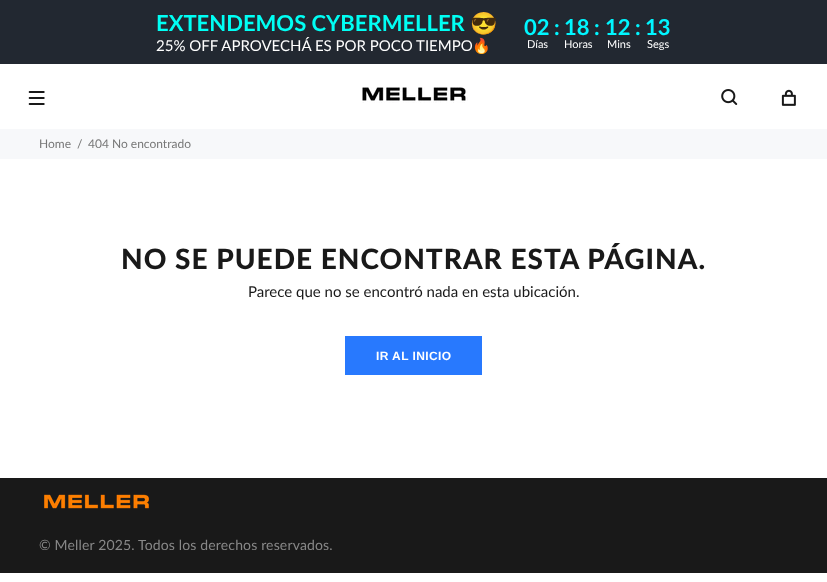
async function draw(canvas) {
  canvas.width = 827
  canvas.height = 582
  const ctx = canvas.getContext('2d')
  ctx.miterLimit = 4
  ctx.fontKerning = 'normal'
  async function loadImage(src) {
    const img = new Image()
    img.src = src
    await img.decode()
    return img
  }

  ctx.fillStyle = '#fff'
  ctx.fillRect(0, 0, 827, 582)
  ctx.fillStyle = '#222831'
  ctx.fillRect(0, 0, 827, 64)
  ctx.font = 'bold 22px Lato'
  ctx.fillStyle = '#00fff4'
  ctx.fillText('EXTENDEMOS CYBERMELLER', 156, 31)
  ctx.font = 'bold 22px Noto Color Emoji'
  ctx.fillText('😎', 470, 31)
  ctx.font = '15px Lato'
  ctx.fillStyle = '#fff'
  ctx.fillText('25% OFF APROVECHÁ ES POR POCO TIEMPO', 156, 51)
  ctx.font = '15px Noto Color Emoji'
  ctx.fillText('🔥', 472, 51)
  ctx.font = 'bold 22px Lato'
  ctx.fillStyle = '#00f6ff'
  ctx.fillText('02', 524, 35)
  ctx.fillText(':', 554, 35)
  ctx.fillText('18', 564, 35)
  ctx.fillText(':', 594, 35)
  ctx.fillText('12', 605, 35)
  ctx.fillText(':', 635, 35)
  ctx.fillText('13', 645, 35)
  ctx.font = '11px Lato'
  ctx.fillStyle = '#fff'
  ctx.fillText('Días', 527, 48)
  ctx.fillText('Horas', 564, 48)
  ctx.fillText('Mins', 607, 48)
  ctx.fillText('Segs', 647, 48)
  ctx.drawImage(await loadImage('image0.png'), 28, 91, 17, 14)
  ctx.drawImage(await loadImage('image1.png'), 362, 87, 106, 16)
  ctx.drawImage(await loadImage('image2.png'), 721, 89, 17, 16)
  ctx.drawImage(await loadImage('image3.png'), 781, 89, 15, 17)
  ctx.fillStyle = '#f7f8fa'
  ctx.fillRect(0, 129, 827, 30)
  ctx.font = '12px Lato'
  ctx.fillStyle = '#777'
  ctx.fillText('Home', 39, 148)
  ctx.fillText('/', 77, 148)
  ctx.fillText('404 No encontrado', 88, 148)
  ctx.letterSpacing = '1px'
  ctx.font = '900 28px Lato'
  ctx.fillStyle = '#191919'
  ctx.fillText('NO SE PUEDE ENCONTRAR ESTA PÁGINA.', 121, 269)
  ctx.letterSpacing = '0px'
  ctx.font = '15px Lato'
  ctx.fillText('Parece que no se encontró nada en esta ubicación.', 248, 297)
  ctx.fillStyle = '#2879fe'
  ctx.fillRect(345, 336, 137, 39)
  ctx.letterSpacing = '0.4px'
  ctx.font = 'bold 12px Liberation Sans'
  ctx.fillStyle = '#fff'
  ctx.fillText('IR AL INICIO', 376, 360)
  ctx.fillStyle = '#191919'
  ctx.fillRect(0, 478, 827, 95)
  ctx.drawImage(await loadImage('image4.png'), 44, 494, 105, 15)
  ctx.letterSpacing = '0.15px'
  ctx.font = '14px Lato'
  ctx.fillStyle = '#888'
  ctx.fillText('© Meller 2025. Todos los derechos reservados.', 39, 550)
}

draw(document.querySelector('canvas'))
